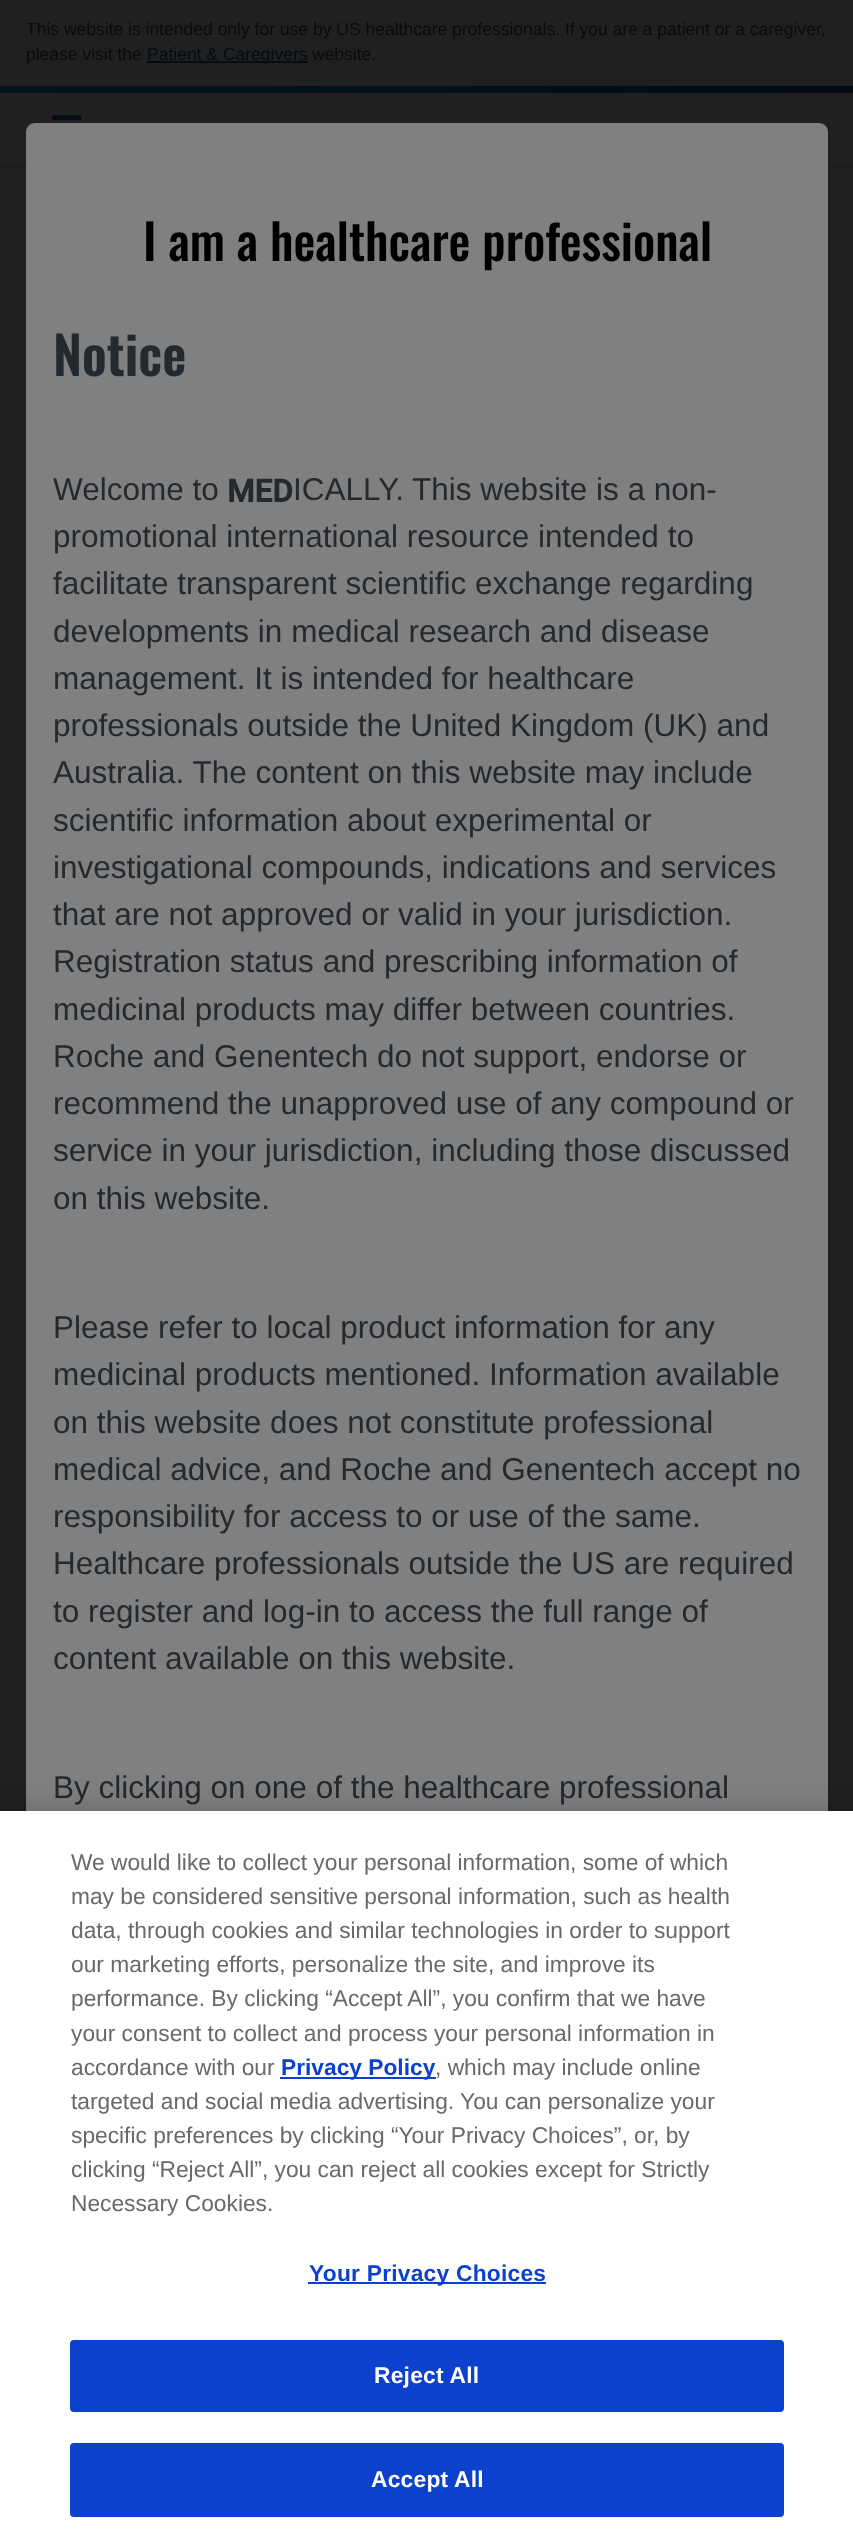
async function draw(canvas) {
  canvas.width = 853
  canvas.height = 2547
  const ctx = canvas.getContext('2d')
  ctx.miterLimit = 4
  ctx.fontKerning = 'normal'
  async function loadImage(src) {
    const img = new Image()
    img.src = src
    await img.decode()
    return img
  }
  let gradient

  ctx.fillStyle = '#202020'
  ctx.fillRect(0, 0, 853, 2547)
  ctx.font = '17.5px Liberation Sans'
  ctx.fillStyle = '#090b0c'
  ctx.fillText('This website is intended only for use by US healthcare professionals. If you are a patient or a caregiver,', 26, 35)
  ctx.fillText('please visit the', 26, 60)
  ctx.fillStyle = '#030b13'
  ctx.fillRect(147, 61, 161, 2)
  ctx.fillText('Patient & Caregivers', 147, 60)
  ctx.fillStyle = '#090b0c'
  ctx.fillText('website.', 312, 60)
  gradient = ctx.createLinearGradient(0, 89, 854, 89)
  gradient.addColorStop(0, '#00141b')
  gradient.addColorStop(1, '#030b13')
  ctx.fillStyle = gradient
  ctx.fillRect(0, 86, 853, 7)
  ctx.drawImage(await loadImage('image0.png'), 52, 115, 30, 5)
  ctx.fillStyle = '#1a1c1f'
  ctx.fillRect(0, 165, 853, 2)
  ctx.fillStyle = '#808080'
  ctx.beginPath()
  ctx.moveTo(35, 123)
  ctx.lineTo(819, 123)
  ctx.bezierCurveTo(824, 123, 828, 127, 828, 132)
  ctx.lineTo(828, 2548)
  ctx.lineTo(26, 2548)
  ctx.lineTo(26, 132)
  ctx.bezierCurveTo(26, 127, 30, 123, 35, 123)
  ctx.closePath()
  ctx.fill()
  ctx.font = '500 49px Oswald'
  ctx.fillStyle = '#000'
  ctx.fillText('I am a healthcare professional', 143, 261)
  ctx.font = '600 52.5px Oswald'
  ctx.fillStyle = '#24292e'
  ctx.fillText('Notice', 53, 376)
  ctx.font = '31.5px Liberation Sans'
  ctx.fillText('Welcome to', 53, 500)
  ctx.font = 'bold 31.5px Roboto'
  ctx.fillText('MED', 227, 502)
  ctx.font = '31.5px Liberation Sans'
  ctx.fillText('ICALLY. This website is a non-', 293, 500)
  ctx.fillText('promotional international resource intended to', 53, 547)
  ctx.fillText('facilitate transparent scientific exchange regarding', 53, 594)
  ctx.fillText('developments in medical research and disease', 53, 642)
  ctx.fillText('management. It is intended for healthcare', 53, 689)
  ctx.fillText('professionals outside the United Kingdom (UK) and', 53, 736)
  ctx.fillText('Australia. The content on this website may include', 53, 783)
  ctx.fillText('scientific information about experimental or', 53, 831)
  ctx.fillText('investigational compounds, indications and services', 53, 878)
  ctx.fillText('that are not approved or valid in your jurisdiction.', 53, 925)
  ctx.fillText('Registration status and prescribing information of', 53, 972)
  ctx.fillText('medicinal products may differ between countries.', 53, 1020)
  ctx.fillText('Roche and Genentech do not support, endorse or', 53, 1067)
  ctx.fillText('recommend the unapproved use of any compound or', 53, 1114)
  ctx.fillText('service in your jurisdiction, including those discussed', 53, 1161)
  ctx.fillText('on this website.', 53, 1209)
  ctx.fillText('Please refer to local product information for any', 53, 1338)
  ctx.fillText('medicinal products mentioned. Information available', 53, 1385)
  ctx.fillText('on this website does not constitute professional', 53, 1433)
  ctx.fillText('medical advice, and Roche and Genentech accept no', 53, 1480)
  ctx.fillText('responsibility for access to or use of the same.', 53, 1527)
  ctx.fillText('Healthcare professionals outside the US are required', 53, 1574)
  ctx.fillText('to register and log-in to access the full range of', 53, 1622)
  ctx.fillText('content available on this website.', 53, 1669)
  ctx.fillText('By clicking on one of the healthcare professional', 53, 1798)
  ctx.fillStyle = '#00000033'
  ctx.filter = 'blur(16px)'
  ctx.beginPath()
  ctx.rect(0, 1811, 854, 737)
  ctx.fill()
  ctx.filter = 'none'
  ctx.fillStyle = '#fff'
  ctx.fillRect(0, 1811, 853, 736)
  ctx.font = '22.75px Liberation Sans'
  ctx.fillStyle = '#696969'
  ctx.fillText('We would like to collect your personal information, some of which', 71, 1870)
  ctx.fillText('may be considered sensitive personal information, such as health', 71, 1904)
  ctx.fillText('data, through cookies and similar technologies in order to support', 71, 1938)
  ctx.fillText('our marketing efforts, personalize the site, and improve its', 71, 1972)
  ctx.fillText('performance. By clicking “Accept All”, you confirm that we have', 71, 2006)
  ctx.fillText('your consent to collect and process your personal information in', 71, 2041)
  ctx.fillText('accordance with our', 71, 2075)
  ctx.fillStyle = '#0b41cd'
  ctx.fillRect(280, 2077, 156, 2)
  ctx.font = 'bold 22.75px Liberation Sans'
  ctx.fillText('Privacy Policy', 281, 2075)
  ctx.font = '22.75px Liberation Sans'
  ctx.fillStyle = '#696969'
  ctx.fillText(', which may include online', 435, 2075)
  ctx.fillText('targeted and social media advertising. You can personalize your', 71, 2109)
  ctx.fillText('specific preferences by clicking “Your Privacy Choices”, or, by', 71, 2143)
  ctx.fillText('clicking “Reject All”, you can reject all cookies except for Strictly', 71, 2177)
  ctx.fillText('Necessary Cookies.', 71, 2211)
  ctx.fillStyle = '#0b41cd'
  ctx.fillRect(308, 2282, 238, 2)
  ctx.letterSpacing = '0.25px'
  ctx.font = 'bold 22.75px Liberation Sans'
  ctx.fillText('Your Privacy Choices', 309, 2281)
  ctx.beginPath()
  ctx.roundRect(71, 2341, 712, 70, 3)
  ctx.fill()
  ctx.strokeStyle = '#0b41cd'
  ctx.lineWidth = 2
  ctx.stroke()
  ctx.fillStyle = '#fff'
  ctx.fillText('Reject All', 374, 2383)
  ctx.fillStyle = '#0b41cd'
  ctx.beginPath()
  ctx.roundRect(71, 2444, 712, 72, 3)
  ctx.fill()
  ctx.stroke()
  ctx.fillStyle = '#fff'
  ctx.fillText('Accept All', 371, 2487)
}

draw(document.querySelector('canvas'))
